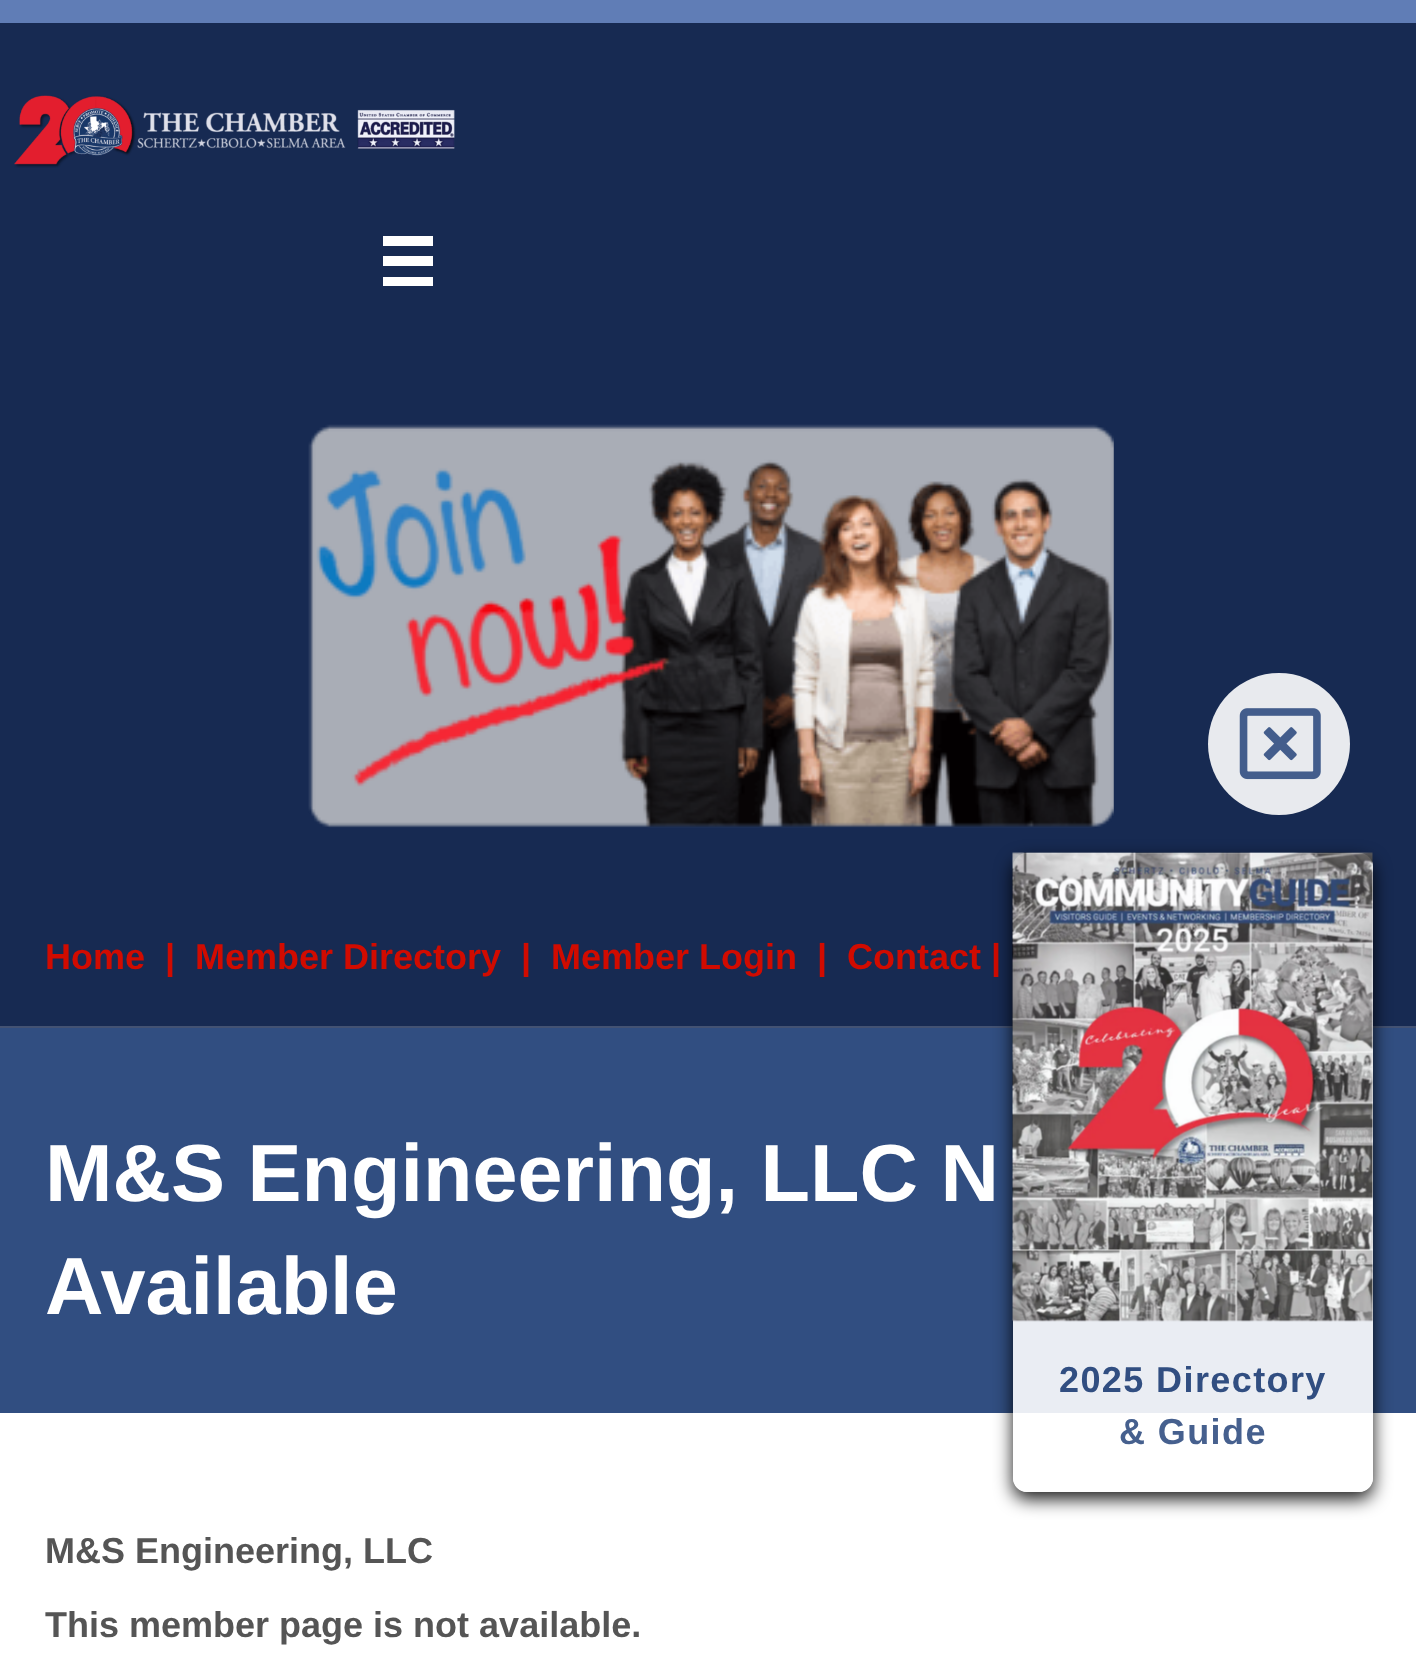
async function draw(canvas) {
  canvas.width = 1416
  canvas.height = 1670
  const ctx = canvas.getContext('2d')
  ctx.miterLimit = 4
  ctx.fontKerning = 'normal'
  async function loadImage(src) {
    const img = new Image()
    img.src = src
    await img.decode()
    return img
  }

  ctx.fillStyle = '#fff'
  ctx.fillRect(0, 0, 1416, 1670)
  ctx.fillStyle = '#607db6'
  ctx.fillRect(0, 0, 1416, 23)
  ctx.fillStyle = '#172a52'
  ctx.fillRect(0, 23, 1416, 1003)
  ctx.fillStyle = '#435273'
  ctx.fillRect(0, 1026, 1416, 2)
  ctx.font = 'bold 36px Liberation Sans'
  ctx.fillStyle = '#d10b00'
  ctx.fillText('Home', 45, 969)
  ctx.fillText('|', 165, 969)
  ctx.fillText('Member Directory', 195, 969)
  ctx.fillText('|', 521, 969)
  ctx.fillText('Member Login', 551, 969)
  ctx.fillText('|', 817, 969)
  ctx.fillText('Contact |', 847, 969)
  ctx.drawImage(await loadImage('image0.png'), 14, 95, 441, 73)
  ctx.fillStyle = '#fff'
  ctx.fillRect(383, 236, 50, 10)
  ctx.fillRect(383, 256, 50, 10)
  ctx.fillRect(383, 277, 50, 9)
  ctx.drawImage(await loadImage('image1.png'), 308, 424, 806, 404)
  ctx.fillStyle = '#314e81'
  ctx.fillRect(0, 1028, 1416, 385)
  ctx.save()
  ctx.beginPath()
  ctx.moveTo(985, 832)
  ctx.lineTo(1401, 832)
  ctx.lineTo(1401, 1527)
  ctx.lineTo(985, 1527)
  ctx.closePath()
  ctx.moveTo(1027, 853)
  ctx.lineTo(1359, 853)
  ctx.bezierCurveTo(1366.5, 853, 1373, 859.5, 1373, 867)
  ctx.lineTo(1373, 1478)
  ctx.bezierCurveTo(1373, 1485.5, 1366.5, 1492, 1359, 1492)
  ctx.lineTo(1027, 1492)
  ctx.bezierCurveTo(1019.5, 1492, 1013, 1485.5, 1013, 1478)
  ctx.lineTo(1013, 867)
  ctx.bezierCurveTo(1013, 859.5, 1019.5, 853, 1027, 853)
  ctx.closePath()
  ctx.clip('evenodd')
  ctx.fillStyle = '#000000e6'
  ctx.filter = 'blur(9px)'
  ctx.beginPath()
  ctx.roundRect(1013, 860, 360, 639, 14)
  ctx.fill()
  ctx.filter = 'none'
  ctx.restore()
  ctx.fillStyle = '#ffffffe6'
  ctx.beginPath()
  ctx.roundRect(1013, 853, 360, 639, 14)
  ctx.fill()
  ctx.fillStyle = '#e8eaee'
  ctx.beginPath()
  ctx.arc(1279, 744, 71, 0, 2 * Math.PI)
  ctx.fill()
  ctx.drawImage(await loadImage('image2.png'), 1239, 708, 82, 72)
  ctx.drawImage(await loadImage('image3.png'), 1012, 852, 361, 470)
  ctx.letterSpacing = '1.4px'
  ctx.fillStyle = '#314e81'
  ctx.fillText('2025 Directory', 1059, 1392)
  ctx.fillStyle = '#46608e'
  ctx.fillText('& Guide', 1119, 1444)
  ctx.letterSpacing = '0px'
  ctx.font = 'bold 81px Liberation Sans'
  ctx.fillStyle = '#fff'
  ctx.fillText('M&S Engineering, LLC N', 45, 1201)
  ctx.fillText('Available', 45, 1314)
  ctx.font = 'bold 36px Liberation Sans'
  ctx.fillStyle = '#555'
  ctx.fillText('M&S Engineering, LLC', 45, 1563)
  ctx.fillText('This member page is not available.', 45, 1637)
}

draw(document.querySelector('canvas'))
